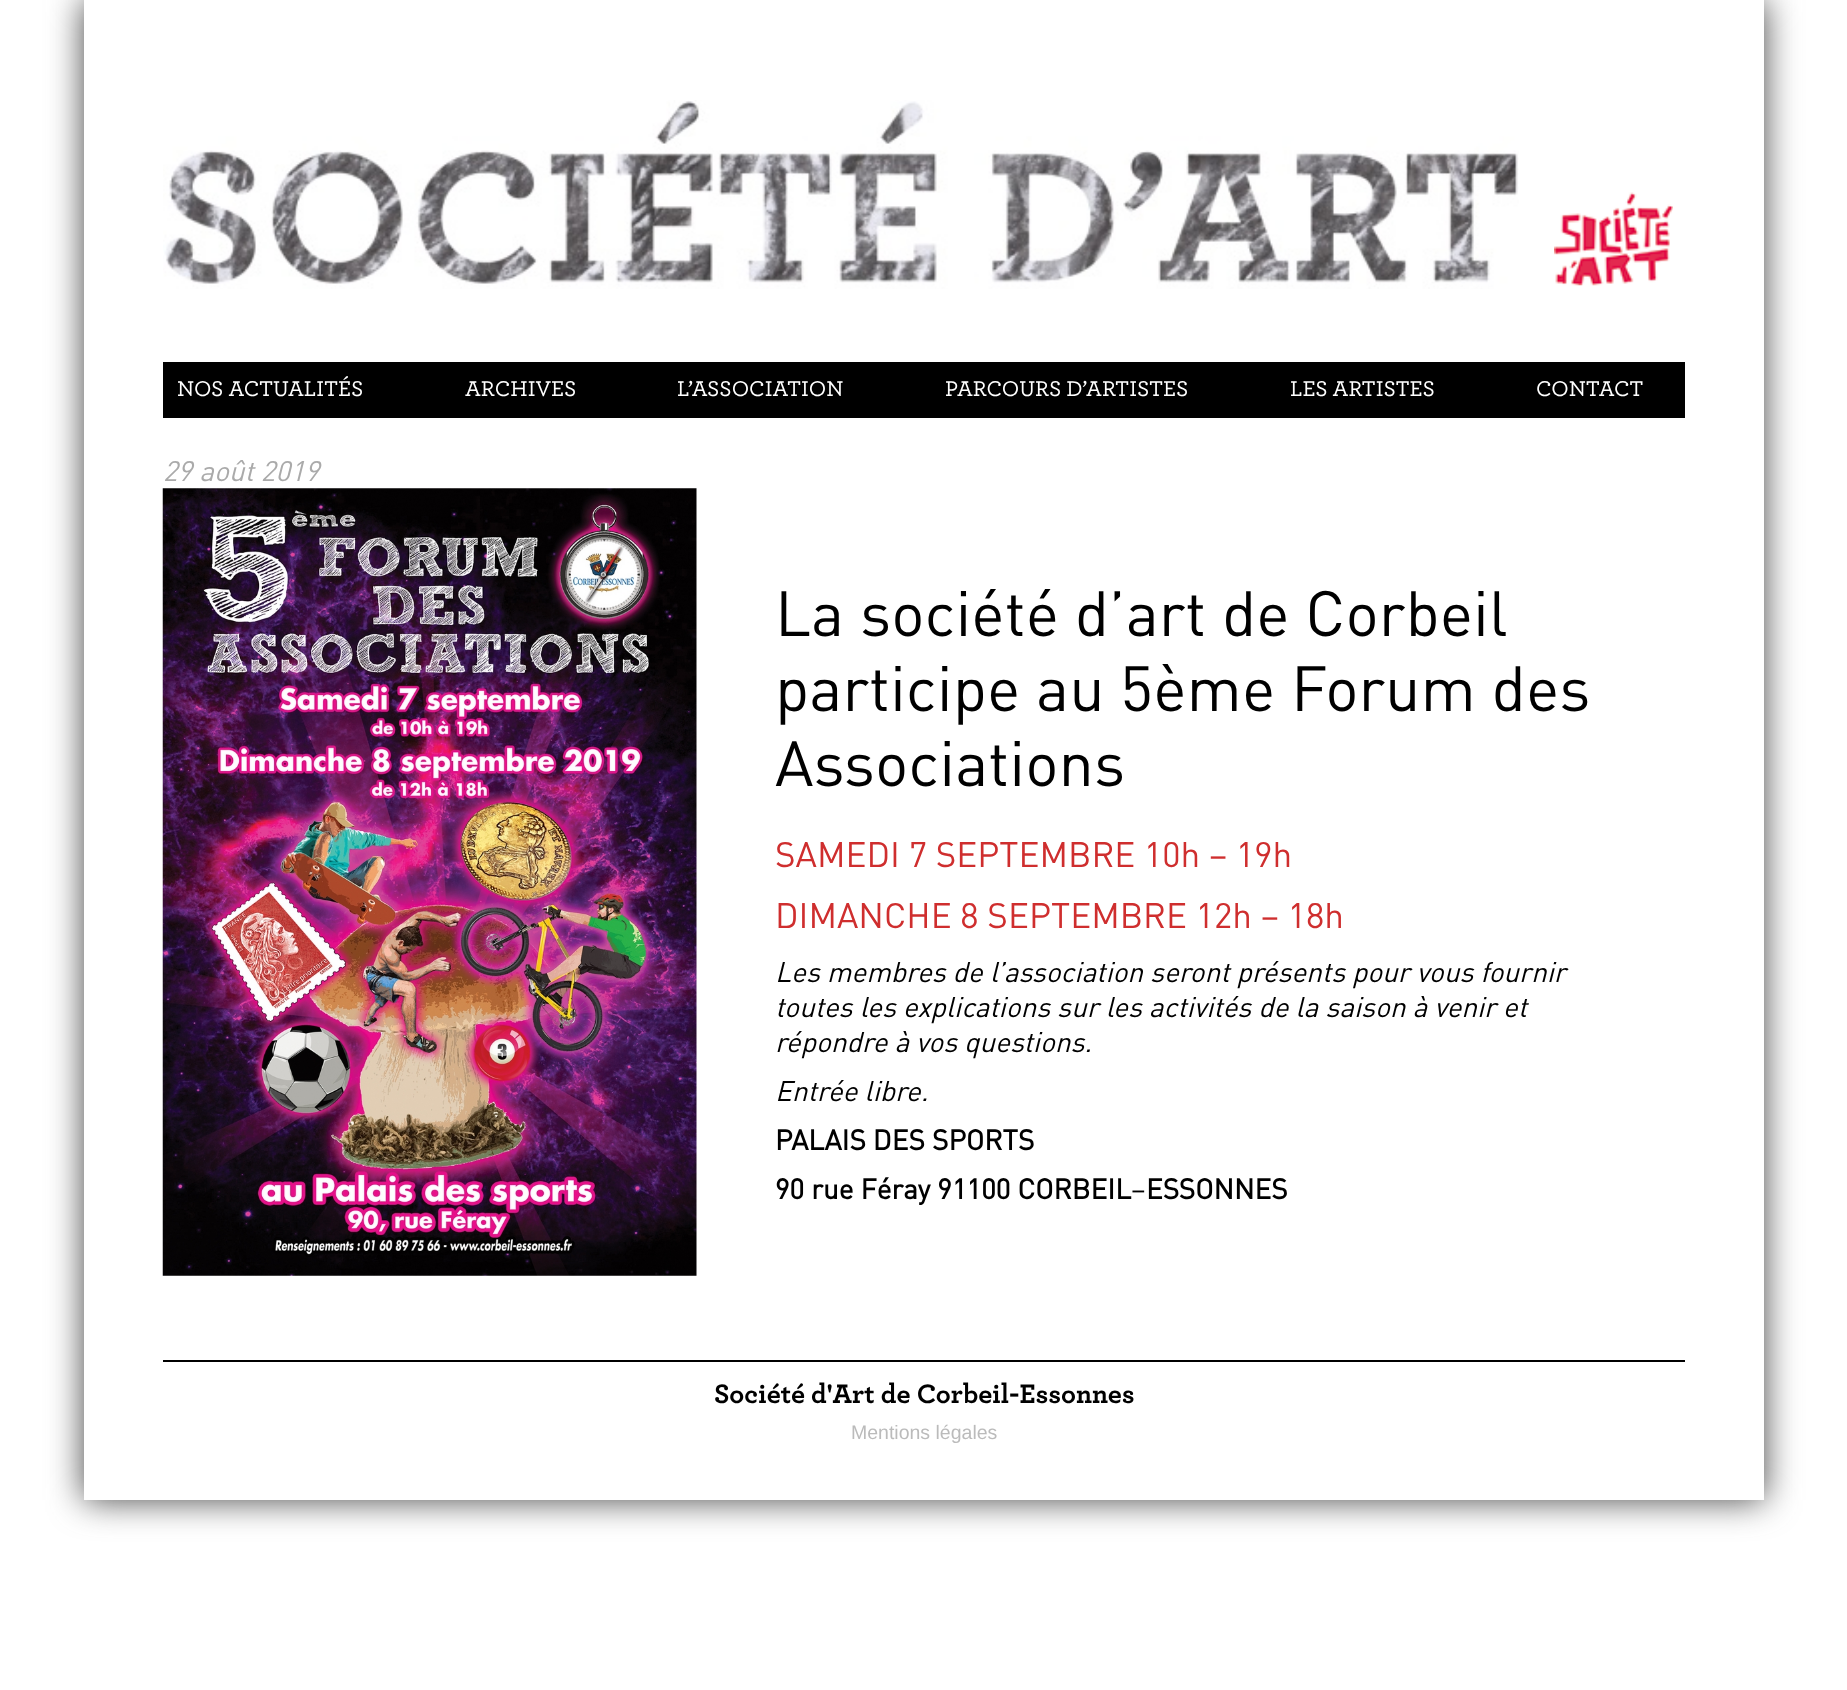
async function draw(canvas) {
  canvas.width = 1847
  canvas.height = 1690
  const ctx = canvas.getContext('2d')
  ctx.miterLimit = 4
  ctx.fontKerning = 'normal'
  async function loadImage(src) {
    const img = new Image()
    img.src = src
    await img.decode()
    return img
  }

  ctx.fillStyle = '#fff'
  ctx.fillRect(0, 0, 1847, 1690)
  ctx.save()
  ctx.beginPath()
  ctx.moveTo(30, 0)
  ctx.lineTo(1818, 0)
  ctx.lineTo(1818, 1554)
  ctx.lineTo(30, 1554)
  ctx.closePath()
  ctx.moveTo(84, 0)
  ctx.lineTo(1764, 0)
  ctx.lineTo(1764, 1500)
  ctx.lineTo(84, 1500)
  ctx.closePath()
  ctx.clip('evenodd')
  ctx.fillStyle = '#444'
  ctx.filter = 'blur(17.5px)'
  ctx.beginPath()
  ctx.rect(84, 0, 1680, 1500)
  ctx.fill()
  ctx.filter = 'none'
  ctx.restore()
  ctx.drawImage(await loadImage('image0.png'), 163, 100, 1356, 189)
  ctx.drawImage(await loadImage('image1.png'), 1554, 192, 119, 94)
  ctx.fillStyle = '#000'
  ctx.fillRect(163, 362, 1522, 56)
  ctx.font = '500 22.4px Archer'
  ctx.fillStyle = '#fff'
  ctx.fillText('NOS ACTUALITÉS', 177, 396)
  ctx.fillText('ARCHIVES', 465, 396)
  ctx.fillText('L’ASSOCIATION', 677, 396)
  ctx.fillText('PARCOURS D’ARTISTES', 945, 396)
  ctx.fillText('LES ARTISTES', 1290, 396)
  ctx.fillText('CONTACT', 1536, 396)
  ctx.font = 'italic 28px DIN'
  ctx.fillStyle = '#aaa'
  ctx.fillText('29 août 2019', 163, 481)
  ctx.drawImage(await loadImage('image2.png'), 162, 488, 535, 788)
  ctx.font = '63px DIN'
  ctx.fillStyle = '#000'
  ctx.fillText('La société d’art de Corbeil', 775, 636)
  ctx.fillText('participe au 5ème Forum des', 775, 711)
  ctx.fillText('Associations', 775, 786)
  ctx.font = '35px DIN'
  ctx.fillStyle = '#cf2e2e'
  ctx.fillText('SAMEDI 7 SEPTEMBRE 10h – 19h', 775, 867)
  ctx.fillText('DIMANCHE 8 SEPTEMBRE 12h – 18h', 775, 928)
  ctx.font = 'italic 28px DIN'
  ctx.fillStyle = '#000'
  ctx.fillText('Les membres de l’association seront présents pour vous fournir', 775, 982)
  ctx.fillText('toutes les explications sur les activités de la saison à venir et', 775, 1017)
  ctx.fillText('répondre à vos questions.', 775, 1052)
  ctx.fillText('Entrée libre.', 775, 1101)
  ctx.font = 'bold 28px DIN'
  ctx.fillText('PALAIS DES SPORTS', 775, 1150)
  ctx.fillText('90 rue Féray 91100 CORBEIL', 775, 1199)
  ctx.font = '28px DIN'
  ctx.fillText('–', 1131, 1199)
  ctx.font = 'bold 28px DIN'
  ctx.fillText('ESSONNES', 1146, 1199)
  ctx.fillRect(163, 1360, 1522, 2)
  ctx.font = 'bold 28px Archer'
  ctx.fillText('Société d\'Art de Corbeil-Essonnes', 714, 1403)
  ctx.font = '19.5px Liberation Sans'
  ctx.fillStyle = '#bbb'
  ctx.fillText('Mentions légales', 851, 1439)
}

draw(document.querySelector('canvas'))
